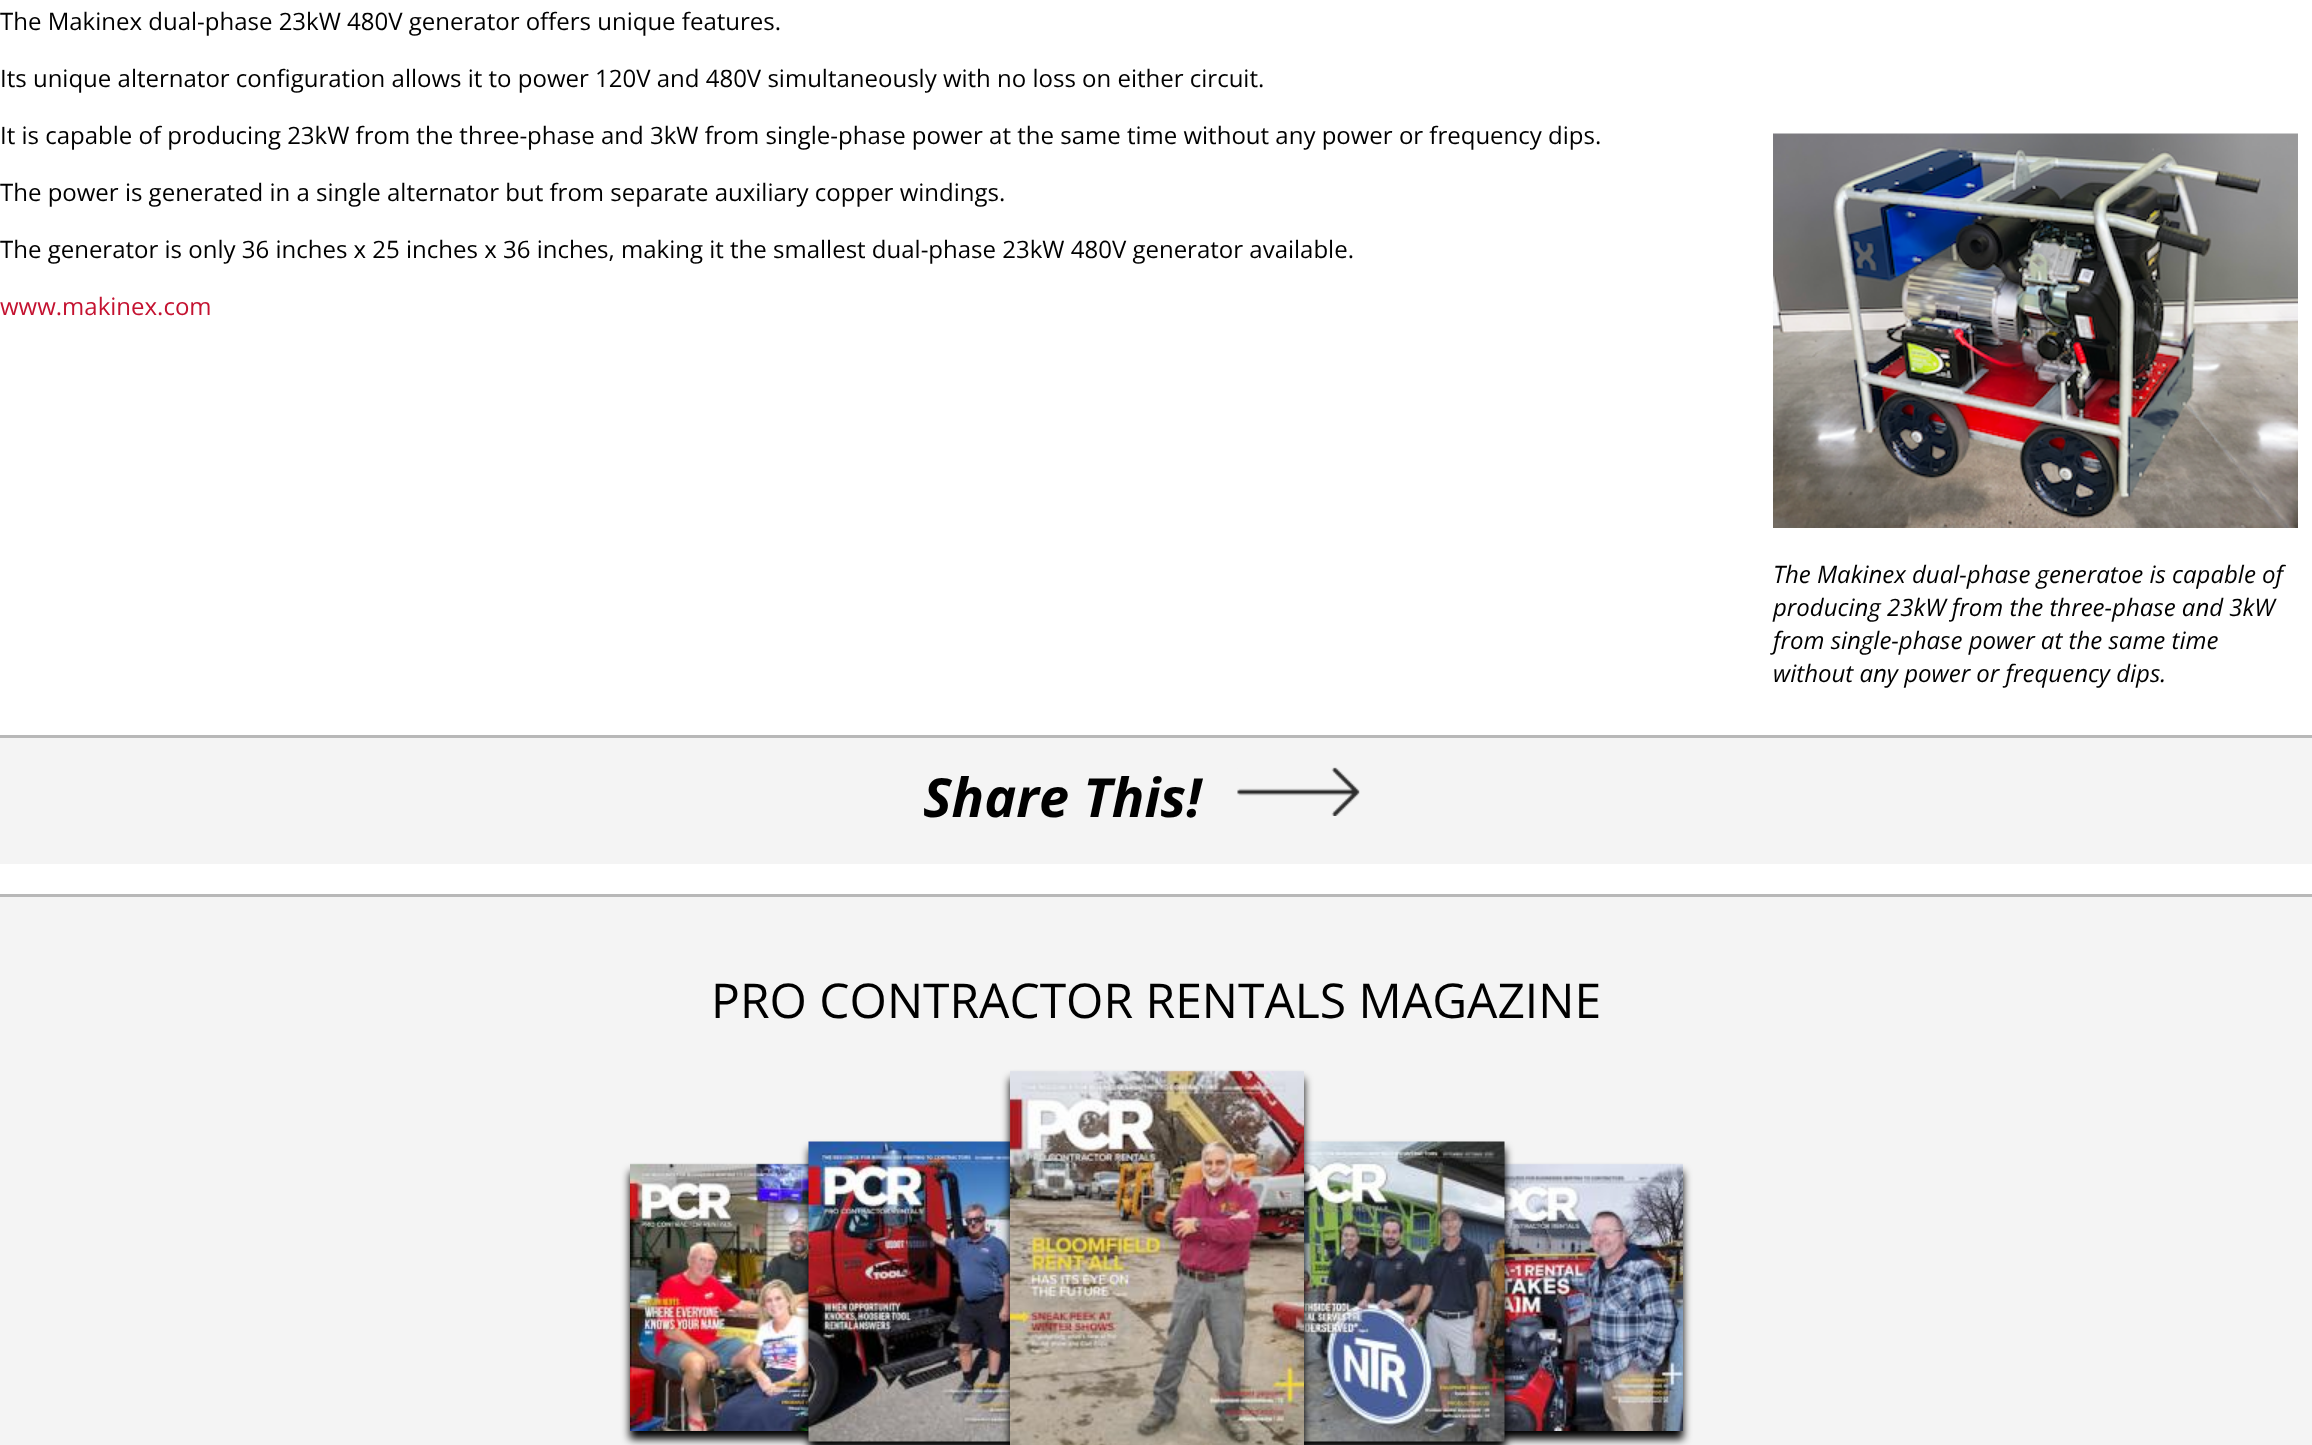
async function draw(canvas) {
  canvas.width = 2312
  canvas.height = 1445
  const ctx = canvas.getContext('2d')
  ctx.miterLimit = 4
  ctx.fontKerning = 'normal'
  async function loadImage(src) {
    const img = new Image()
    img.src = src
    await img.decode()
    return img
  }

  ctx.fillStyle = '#fff'
  ctx.fillRect(0, 0, 2312, 1445)
  ctx.font = '24px Open Sans'
  ctx.fillStyle = '#000'
  ctx.fillText('The Makinex dual-phase 23kW 480V generator offers unique features.', 0, 30)
  ctx.fillText('Its unique alternator configuration allows it to power 120V and 480V simultaneously with no loss on either circuit.', 0, 87)
  ctx.fillText('It is capable of producing 23kW from the three-phase and 3kW from single-phase power at the same time without any power or frequency dips.', 0, 144)
  ctx.fillText('The power is generated in a single alternator but from separate auxiliary copper windings.', 0, 201)
  ctx.fillText('The generator is only 36 inches x 25 inches x 36 inches, making it the smallest dual-phase 23kW 480V generator available.', 0, 258)
  ctx.fillStyle = '#c41230'
  ctx.fillText('www.makinex.com', 0, 315)
  ctx.drawImage(await loadImage('image0.png'), 1773, 133, 525, 395)
  ctx.font = 'italic 24px Open Sans'
  ctx.fillStyle = '#000'
  ctx.fillText('The Makinex dual-phase generatoe is capable of', 1773, 583)
  ctx.fillText('producing 23kW from the three-phase and 3kW', 1773, 616)
  ctx.fillText('from single-phase power at the same time', 1773, 649)
  ctx.fillText('without any power or frequency dips.', 1773, 682)
  ctx.fillStyle = '#f4f4f4'
  ctx.fillRect(0, 738, 2312, 126)
  ctx.fillStyle = '#b8b8b8'
  ctx.fillRect(0, 735, 2312, 3)
  ctx.font = 'italic bold 54px Open Sans'
  ctx.fillStyle = '#000'
  ctx.fillText('Share This!', 923, 817)
  ctx.drawImage(await loadImage('image1.png'), 1237, 767, 123, 49)
  ctx.fillStyle = '#f4f4f4'
  ctx.fillRect(0, 897, 2312, 548)
  ctx.fillStyle = '#b8b8b8'
  ctx.fillRect(0, 894, 2312, 3)
  ctx.font = '48px Open Sans'
  ctx.fillStyle = '#000'
  ctx.fillText('PRO CONTRACTOR RENTALS MAGAZINE', 711, 1018)
  ctx.filter = 'blur(4px)'
  ctx.beginPath()
  ctx.rect(630, 1172, 206, 267)
  ctx.fill()
  ctx.filter = 'none'
  ctx.drawImage(await loadImage('image2.png'), 630, 1163, 179, 268)
  ctx.filter = 'blur(4px)'
  ctx.beginPath()
  ctx.rect(809, 1149, 231, 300)
  ctx.fill()
  ctx.filter = 'none'
  ctx.drawImage(await loadImage('image3.png'), 808, 1141, 202, 301)
  ctx.filter = 'blur(4px)'
  ctx.beginPath()
  ctx.rect(1478, 1172, 205, 267)
  ctx.fill()
  ctx.filter = 'none'
  ctx.drawImage(await loadImage('image6.png'), 1504, 1163, 179, 268)
  ctx.filter = 'blur(4px)'
  ctx.beginPath()
  ctx.rect(1274, 1149, 231, 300)
  ctx.fill()
  ctx.filter = 'none'
  ctx.drawImage(await loadImage('image5.png'), 1304, 1141, 201, 301)
  ctx.filter = 'blur(4px)'
  ctx.beginPath()
  ctx.rect(1010, 1079, 294, 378)
  ctx.fill()
  ctx.filter = 'none'
  ctx.drawImage(await loadImage('image4.png'), 1010, 1070, 294, 375)
}

draw(document.querySelector('canvas'))
